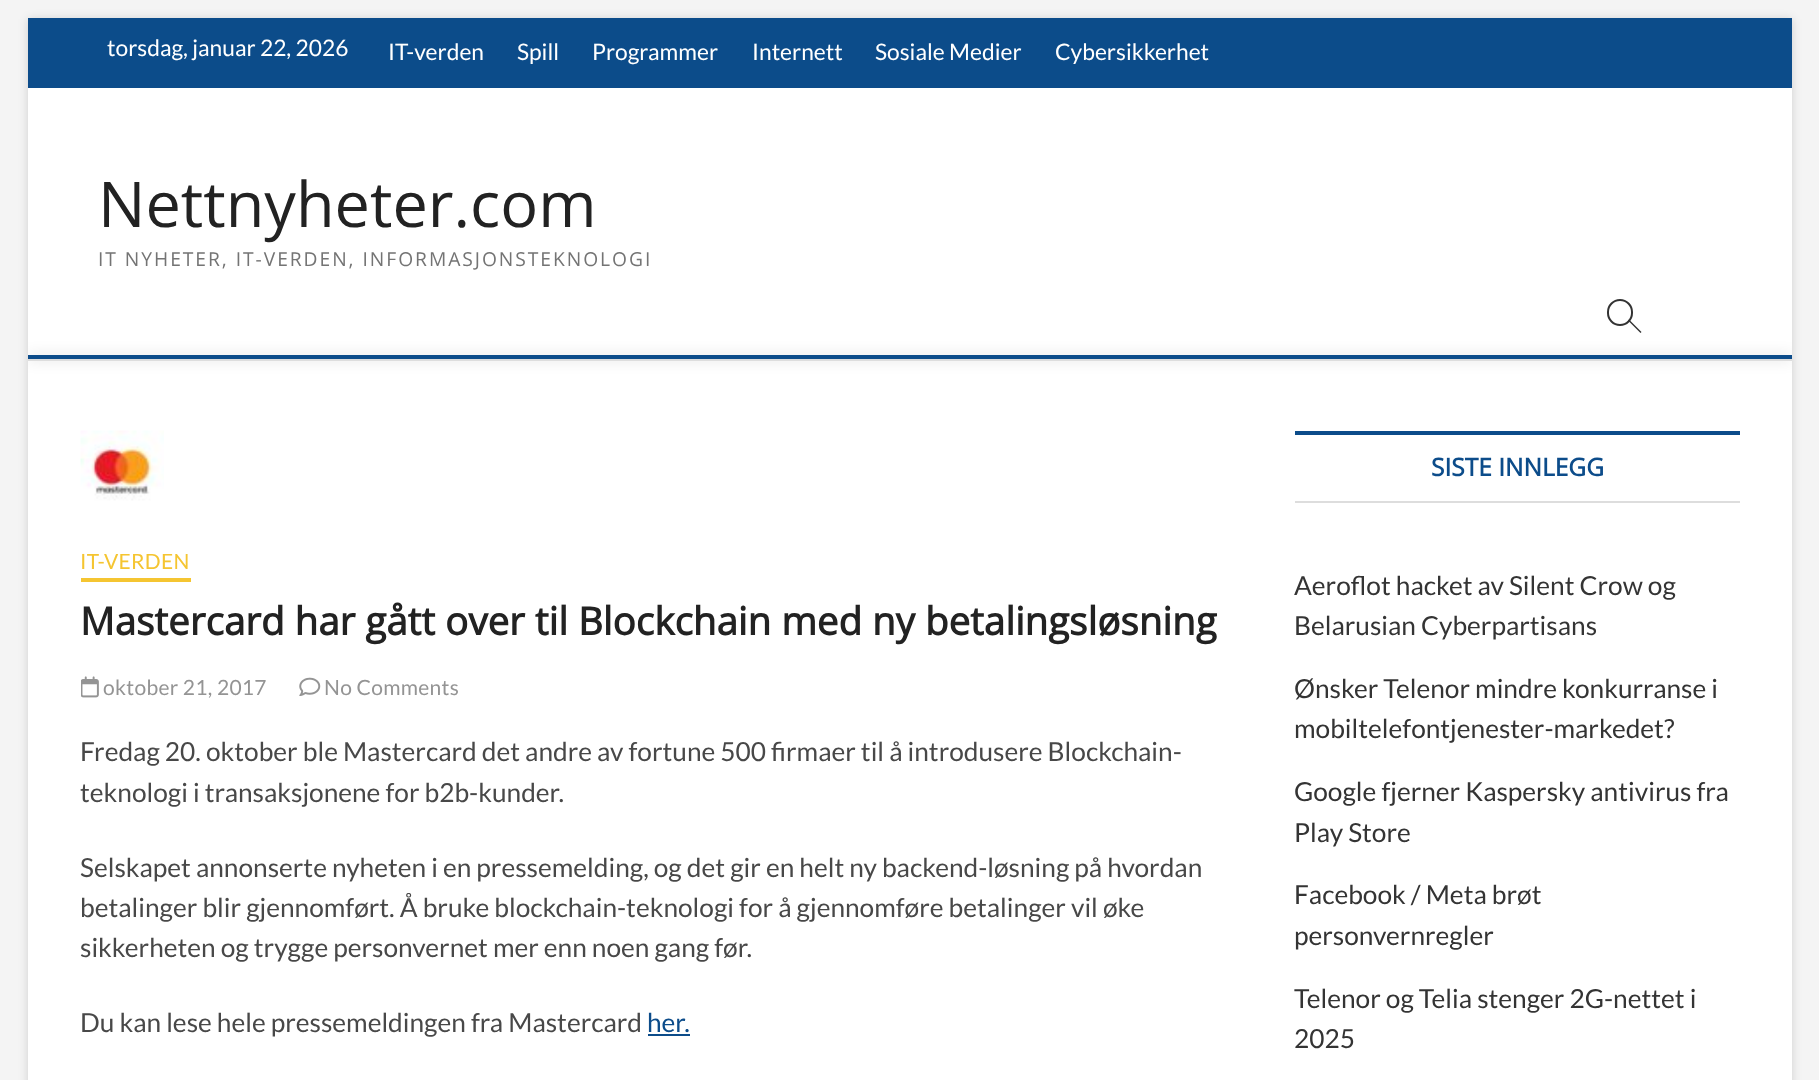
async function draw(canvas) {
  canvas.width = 1819
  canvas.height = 1080
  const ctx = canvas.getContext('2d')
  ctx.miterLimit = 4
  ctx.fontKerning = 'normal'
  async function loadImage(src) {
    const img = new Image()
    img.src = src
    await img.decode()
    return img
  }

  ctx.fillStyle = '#f4f4f4'
  ctx.fillRect(0, 0, 1819, 1080)
  ctx.fillStyle = '#00000026'
  ctx.filter = 'blur(5px)'
  ctx.beginPath()
  ctx.rect(28, 19, 1764, 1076)
  ctx.fill()
  ctx.filter = 'none'
  ctx.fillStyle = '#fff'
  ctx.fillRect(28, 88, 1764, 992)
  ctx.fillStyle = '#0c4c8a'
  ctx.fillRect(28, 18, 1764, 70)
  ctx.font = '22.75px Lato'
  ctx.fillStyle = '#fff'
  ctx.fillText('torsdag, januar 22, 2026', 107, 56)
  ctx.fillText('IT-verden', 388, 60)
  ctx.fillText('Spill', 517, 60)
  ctx.fillText('Programmer', 592, 60)
  ctx.fillText('Internett', 752, 60)
  ctx.fillText('Sosiale Medier', 875, 60)
  ctx.fillText('Cybersikkerhet', 1055, 60)
  ctx.font = '63px Open Sans'
  ctx.fillStyle = '#222'
  ctx.fillText('Nettnyheter.com', 98, 227)
  ctx.letterSpacing = '1.95px'
  ctx.font = '19.25px Open Sans'
  ctx.fillStyle = '#747474'
  ctx.fillText('IT NYHETER, IT-VERDEN, INFORMASJONSTEKNOLOGI', 98, 266)
  ctx.save()
  ctx.beginPath()
  ctx.rect(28, 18, 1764, 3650)
  ctx.clip()
  ctx.fillStyle = '#00000026'
  ctx.filter = 'blur(7px)'
  ctx.beginPath()
  ctx.rect(28, 355, 1764, 5)
  ctx.fill()
  ctx.filter = 'none'
  ctx.restore()
  ctx.fillStyle = '#0c4c8a'
  ctx.fillRect(28, 355, 1764, 4)
  ctx.fillStyle = '#ddd'
  ctx.fillRect(28, 359, 1764, 2)
  ctx.beginPath()
  ctx.roundRect(1608, 300, 24, 25, 12)
  ctx.strokeStyle = '#333'
  ctx.lineWidth = 2
  ctx.stroke()
  ctx.fillStyle = '#333'
  ctx.beginPath()
  ctx.moveTo(1628, 320.5)
  ctx.lineTo(1629, 319.5)
  ctx.lineTo(1641.5, 332)
  ctx.lineTo(1640.5, 333)
  ctx.closePath()
  ctx.fill()
  ctx.drawImage(await loadImage('image0.png'), 80, 430, 84, 71)
  ctx.letterSpacing = '0.3px'
  ctx.font = '21px Lato'
  ctx.fillStyle = '#f5c531'
  ctx.fillText('IT-VERDEN', 80, 569)
  ctx.fillRect(81, 578, 110, 4)
  ctx.letterSpacing = '0px'
  ctx.font = 'bold 38.5px Open Sans'
  ctx.fillStyle = '#222'
  ctx.fillText('Mastercard har gått over til Blockchain med ny betalingsløsning', 80, 635)
  ctx.drawImage(await loadImage('image1.png'), 81, 676, 18, 22)
  ctx.letterSpacing = '0.3px'
  ctx.font = '21px Lato'
  ctx.fillStyle = '#949494'
  ctx.fillText('oktober 21, 2017', 103, 695)
  ctx.drawImage(await loadImage('image2.png'), 299, 677, 22, 19)
  ctx.fillText('No Comments', 324, 695)
  ctx.letterSpacing = '0px'
  ctx.font = '26.25px Lato'
  ctx.fillStyle = '#484848'
  ctx.fillText('Fredag 20. oktober ble Mastercard det andre av fortune 500 firmaer til å introdusere Blockchain-', 80, 761)
  ctx.fillText('teknologi i transaksjonene for b2b-kunder.', 80, 802)
  ctx.fillText('Selskapet annonserte nyheten i en pressemelding, og det gir en helt ny backend-løsning på hvordan', 80, 877)
  ctx.fillText('betalinger blir gjennomført. Å bruke blockchain-teknologi for å gjennomføre betalinger vil øke', 80, 917)
  ctx.fillText('sikkerheten og trygge personvernet mer enn noen gang før.', 80, 957)
  ctx.fillText('Du kan lese hele pressemeldingen fra Mastercard', 80, 1032)
  ctx.fillStyle = '#0c4c8a'
  ctx.fillText('her.', 647, 1032)
  ctx.fillRect(648, 1034, 42, 2)
  ctx.fillRect(1295, 431, 445, 4)
  ctx.fillStyle = '#ddd'
  ctx.fillRect(1295, 501, 445, 2)
  ctx.font = 'bold 24.5px Open Sans'
  ctx.fillStyle = '#0c4c8a'
  ctx.fillText('SISTE INNLEGG', 1431, 476)
  ctx.font = '26.25px Lato'
  ctx.fillStyle = '#343434'
  ctx.fillText('Aeroflot hacket av Silent Crow og', 1294, 595)
  ctx.fillText('Belarusian Cyberpartisans', 1294, 635)
  ctx.fillText('Ønsker Telenor mindre konkurranse i', 1294, 698)
  ctx.fillText('mobiltelefontjenester-markedet?', 1294, 738)
  ctx.fillText('Google fjerner Kaspersky antivirus fra', 1294, 801)
  ctx.fillText('Play Store', 1294, 842)
  ctx.fillText('Facebook / Meta brøt', 1294, 904)
  ctx.fillText('personvernregler', 1294, 945)
  ctx.fillText('Telenor og Telia stenger 2G-nettet i', 1294, 1008)
  ctx.fillText('2025', 1294, 1048)
}

draw(document.querySelector('canvas'))
